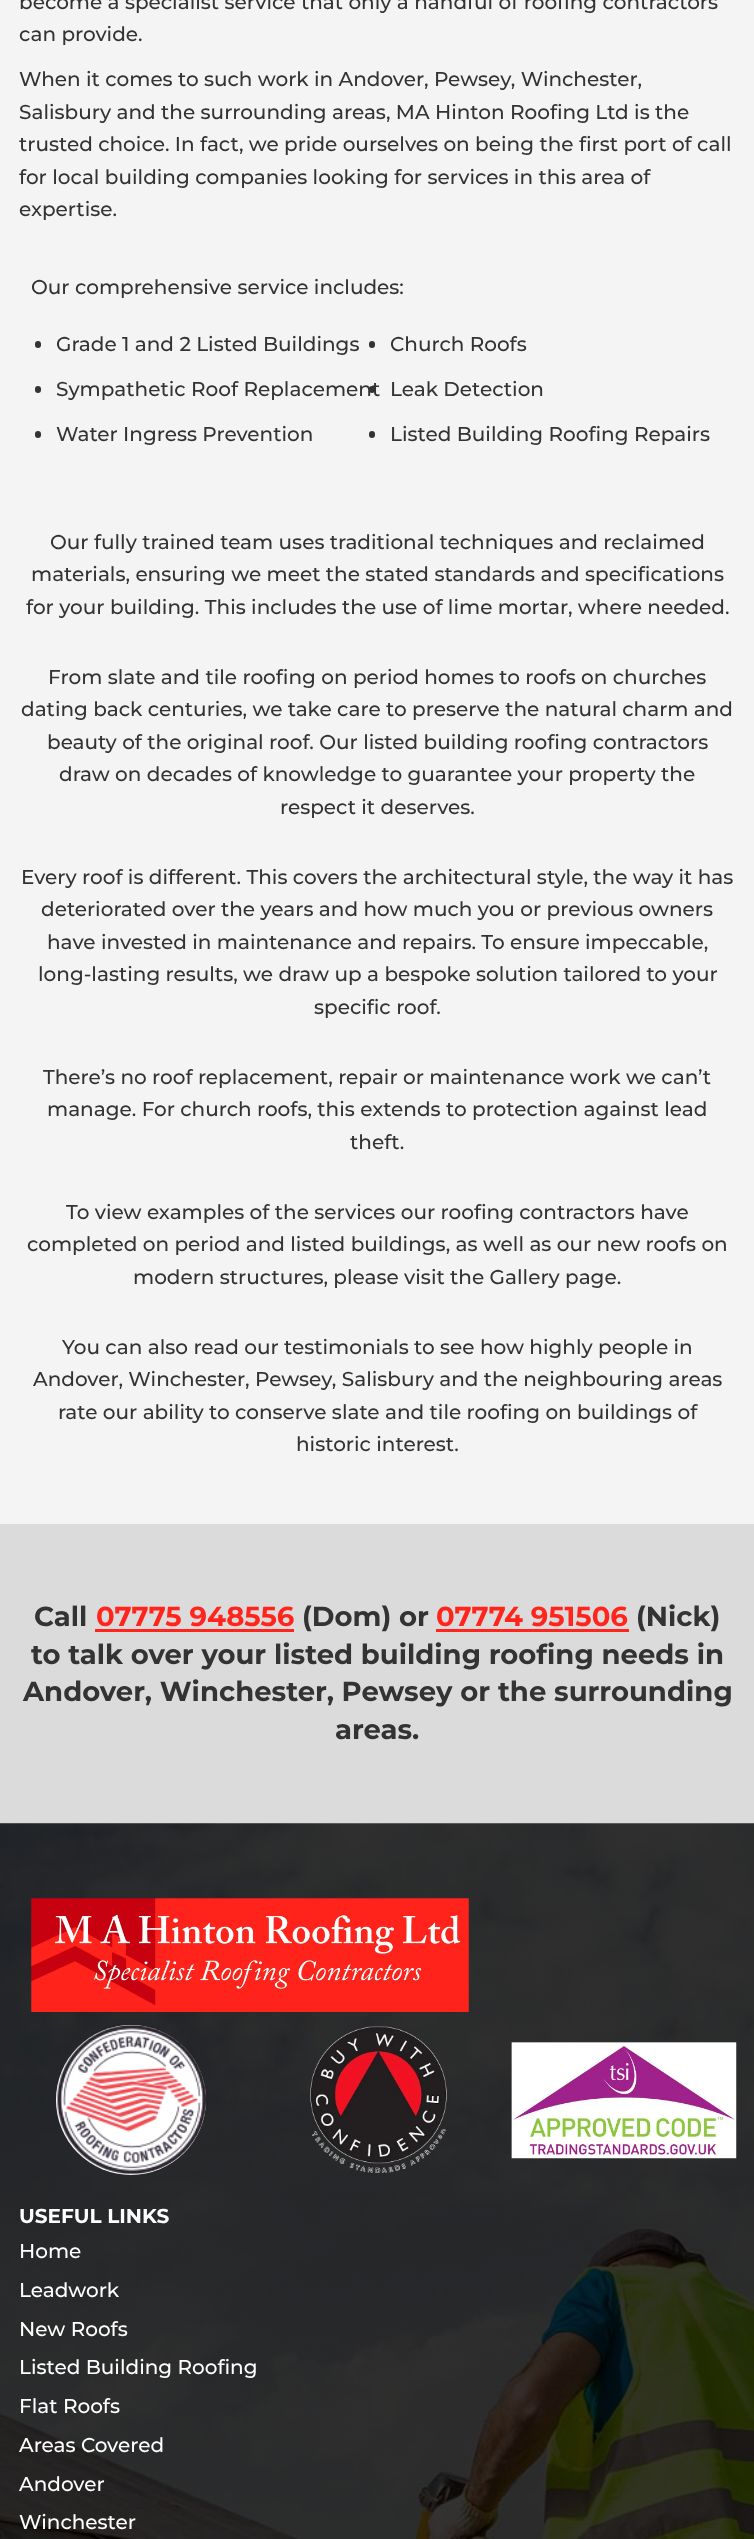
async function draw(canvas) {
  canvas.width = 754
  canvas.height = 2539
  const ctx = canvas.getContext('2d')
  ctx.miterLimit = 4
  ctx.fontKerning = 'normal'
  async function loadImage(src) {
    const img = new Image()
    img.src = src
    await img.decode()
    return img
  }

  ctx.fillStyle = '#f4f4f4'
  ctx.fillRect(0, 0, 754, 2539)
  ctx.font = '500 20px Montserrat'
  ctx.fillStyle = '#333'
  ctx.fillText('become a specialist service that only a handful of roofing contractors', 19, 9)
  ctx.fillText('can provide.', 19, 41)
  ctx.fillText('When it comes to such work in Andover, Pewsey, Winchester,', 19, 86)
  ctx.fillText('Salisbury and the surrounding areas, MA Hinton Roofing Ltd is the', 19, 119)
  ctx.fillText('trusted choice. In fact, we pride ourselves on being the first port of call', 19, 151)
  ctx.fillText('for local building companies looking for services in this area of', 19, 184)
  ctx.fillText('expertise.', 19, 216)
  ctx.fillText('Our comprehensive service includes:', 31, 294)
  ctx.beginPath()
  ctx.roundRect(35, 341, 6, 7, 3)
  ctx.fill()
  ctx.fillText('Grade 1 and 2 Listed Buildings', 56, 351)
  ctx.beginPath()
  ctx.roundRect(369, 341, 6, 7, 3)
  ctx.fill()
  ctx.fillText('Church Roofs', 390, 351)
  ctx.beginPath()
  ctx.roundRect(35, 386, 6, 7, 3)
  ctx.fill()
  ctx.fillText('Sympathetic Roof Replacement', 56, 396)
  ctx.beginPath()
  ctx.roundRect(369, 386, 6, 7, 3)
  ctx.fill()
  ctx.fillText('Leak Detection', 390, 396)
  ctx.beginPath()
  ctx.roundRect(35, 431, 6, 7, 3)
  ctx.fill()
  ctx.fillText('Water Ingress Prevention', 56, 441)
  ctx.beginPath()
  ctx.roundRect(369, 431, 6, 7, 3)
  ctx.fill()
  ctx.fillText('Listed Building Roofing Repairs', 390, 441)
  ctx.fillText('Our fully trained team uses traditional techniques and reclaimed', 50, 549)
  ctx.fillText('materials, ensuring we meet the stated standards and specifications', 31, 581)
  ctx.fillText('for your building. This includes the use of lime mortar, where needed.', 26, 614)
  ctx.fillText('From slate and tile roofing on period homes to roofs on churches', 48, 684)
  ctx.fillText('dating back centuries, we take care to preserve the natural charm and', 21, 716)
  ctx.fillText('beauty of the original roof. Our listed building roofing contractors', 47, 749)
  ctx.fillText('draw on decades of knowledge to guarantee your property the', 59, 781)
  ctx.fillText('respect it deserves.', 280, 814)
  ctx.fillText('Every roof is different. This covers the architectural style, the way it has', 21, 884)
  ctx.fillText('deteriorated over the years and how much you or previous owners', 41, 916)
  ctx.fillText('have invested in maintenance and repairs. To ensure impeccable,', 47, 949)
  ctx.fillText('long-lasting results, we draw up a bespoke solution tailored to your', 38, 981)
  ctx.fillText('specific roof.', 314, 1014)
  ctx.fillText('There’s no roof replacement, repair or maintenance work we can’t', 43, 1084)
  ctx.fillText('manage. For church roofs, this extends to protection against lead', 47, 1116)
  ctx.fillText('theft.', 350, 1149)
  ctx.fillText('To view examples of the services our roofing contractors have', 66, 1219)
  ctx.fillText('completed on period and listed buildings, as well as our new roofs on', 27, 1251)
  ctx.fillText('modern structures, please visit the Gallery page.', 133, 1284)
  ctx.fillText('You can also read our testimonials to see how highly people in', 62, 1354)
  ctx.fillText('Andover, Winchester, Pewsey, Salisbury and the neighbouring areas', 33, 1386)
  ctx.fillText('rate our ability to conserve slate and tile roofing on buildings of', 58, 1419)
  ctx.fillText('historic interest.', 296, 1451)
  ctx.fillStyle = '#dbdbdb'
  ctx.fillRect(0, 1524, 754, 300)
  ctx.font = 'bold 27.5px Montserrat'
  ctx.fillStyle = '#333'
  ctx.fillText('Call', 34, 1626)
  ctx.fillStyle = '#ff251c'
  ctx.fillText('07775 948556', 96, 1626)
  ctx.fillRect(95, 1629, 199, 3)
  ctx.fillStyle = '#333'
  ctx.fillText('(Dom) or', 302, 1626)
  ctx.fillStyle = '#ff251c'
  ctx.fillText('07774 951506', 436, 1626)
  ctx.fillRect(436, 1629, 193, 3)
  ctx.fillStyle = '#333'
  ctx.fillText('(Nick)', 636, 1626)
  ctx.fillText('to talk over your listed building roofing needs in', 31, 1664)
  ctx.fillText('Andover, Winchester, Pewsey or the surrounding', 23, 1701)
  ctx.fillText('areas.', 335, 1739)
  ctx.drawImage(await loadImage('image0.png'), 0, 1823, 754, 716)
  ctx.drawImage(await loadImage('image1.png'), 31, 1898, 438, 114)
  ctx.fillStyle = '#fff'
  ctx.beginPath()
  ctx.arc(131, 2100, 75, 0, 2 * Math.PI)
  ctx.fill()
  ctx.drawImage(await loadImage('image2.png'), 57, 2025, 149, 150)
  ctx.drawImage(await loadImage('image3.png'), 310, 2026, 137, 147)
  ctx.drawImage(await loadImage('image4.png'), 511, 2042, 226, 117)
  ctx.font = 'bold 20px Montserrat'
  ctx.fillText('USEFUL LINKS', 19, 2223)
  ctx.font = '500 20px Montserrat'
  ctx.fillText('Home', 19, 2258)
  ctx.fillText('Leadwork', 19, 2297)
  ctx.fillText('New Roofs', 19, 2336)
  ctx.fillText('Listed Building Roofing', 19, 2374)
  ctx.fillText('Flat Roofs', 19, 2413)
  ctx.fillText('Areas Covered', 19, 2452)
  ctx.fillText('Andover', 19, 2491)
  ctx.fillText('Winchester', 19, 2529)
}

draw(document.querySelector('canvas'))
